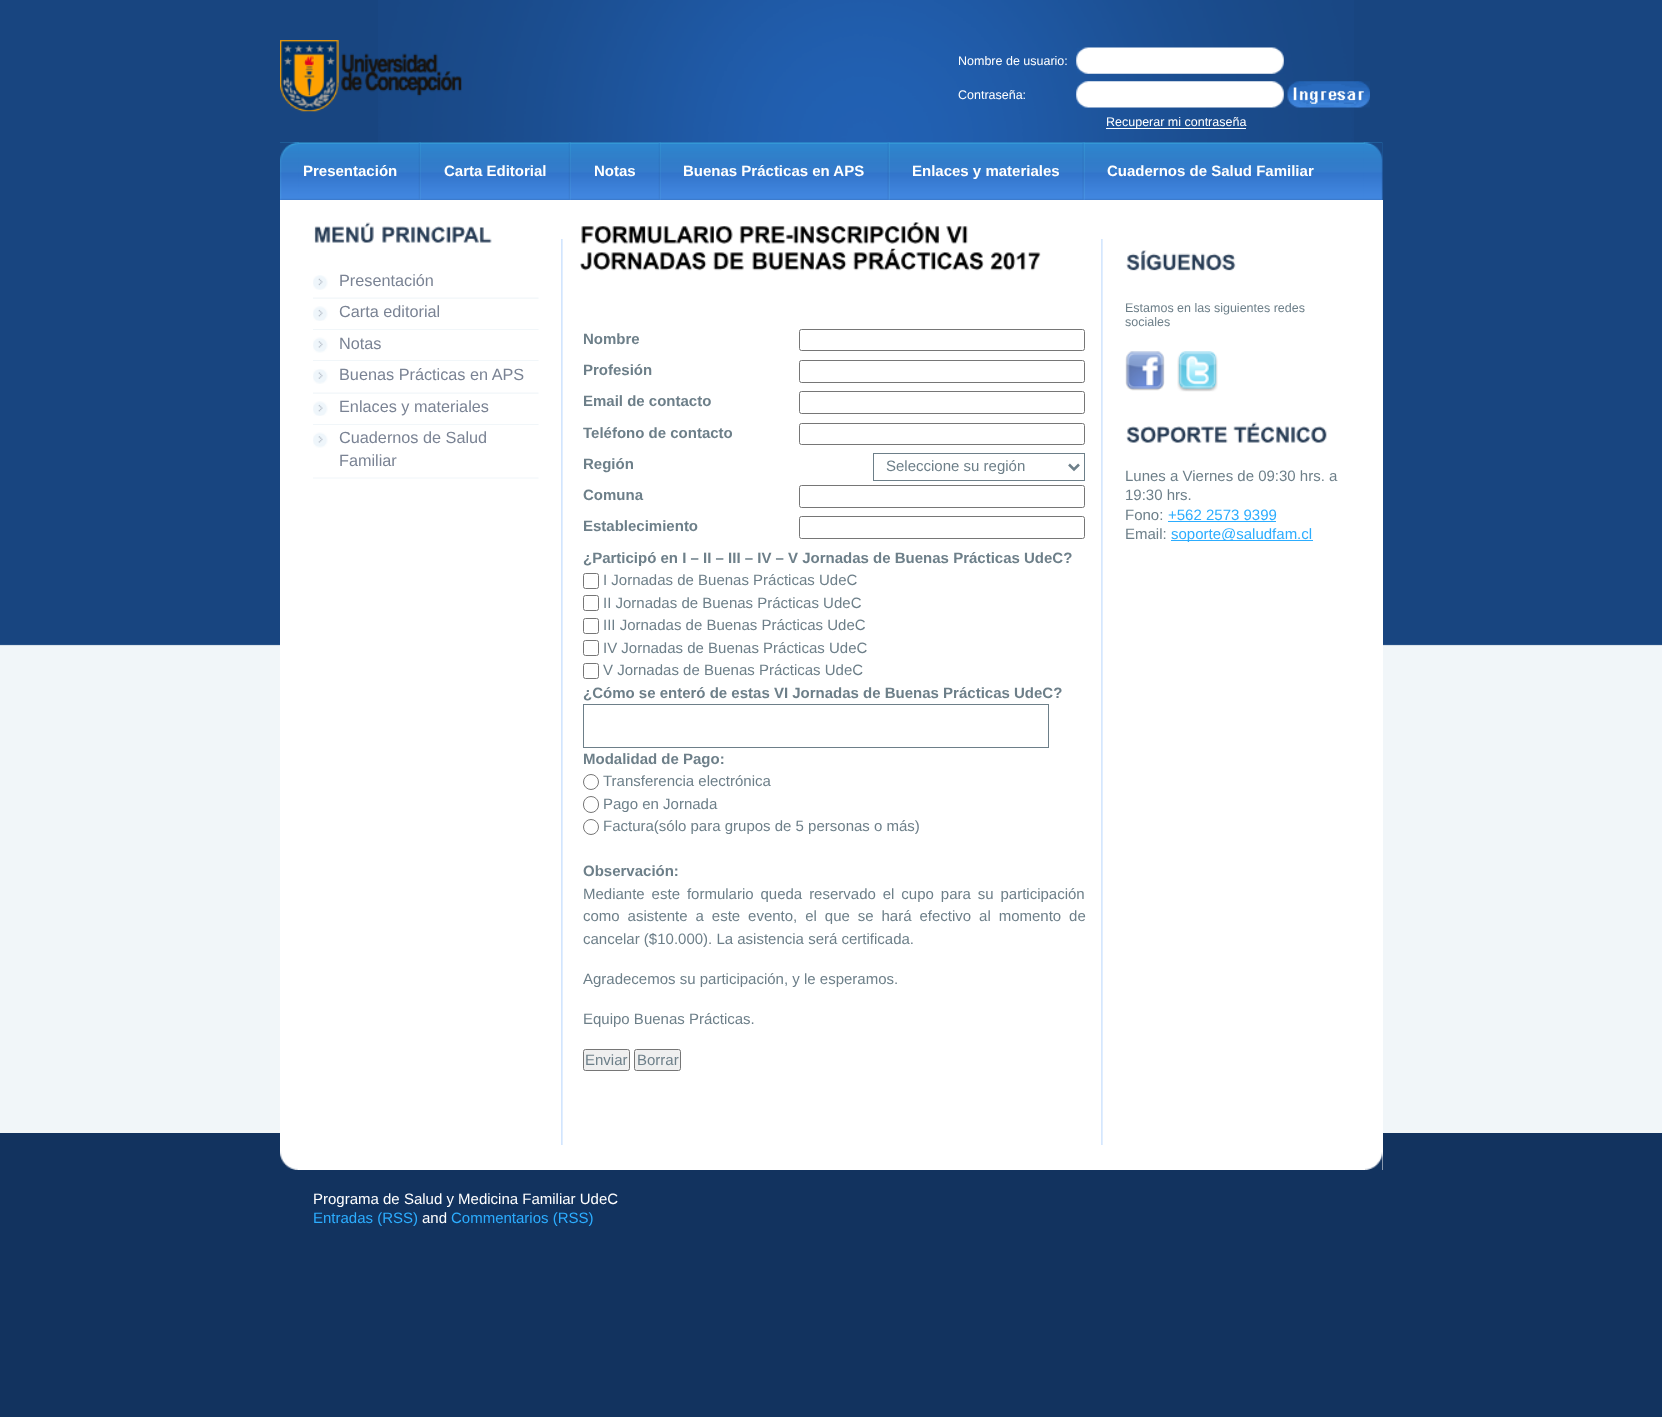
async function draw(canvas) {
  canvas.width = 1662
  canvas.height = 1417
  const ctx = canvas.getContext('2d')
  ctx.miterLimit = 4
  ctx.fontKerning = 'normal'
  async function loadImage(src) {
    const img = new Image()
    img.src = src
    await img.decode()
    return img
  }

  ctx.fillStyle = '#12335f'
  ctx.fillRect(0, 0, 1662, 1417)
  ctx.fillStyle = '#f1f6f9'
  ctx.fillRect(0, 646, 1662, 487)
  ctx.drawImage(await loadImage('image0.png'), 0, 0, 1662, 646)
  ctx.drawImage(await loadImage('image1.png'), 378, 0, 976, 143)
  ctx.drawImage(await loadImage('image2.png'), 280, 40, 182, 72)
  ctx.font = '12.5px Liberation Sans'
  ctx.fillStyle = '#fff'
  ctx.fillText('Nombre de usuario:', 958, 65)
  ctx.drawImage(await loadImage('image3.png'), 1076, 47, 208, 27)
  ctx.fillText('Contraseña:', 958, 99)
  ctx.drawImage(await loadImage('image4.png'), 1076, 81, 208, 27)
  ctx.drawImage(await loadImage('image5.png'), 1287, 81, 83, 27)
  ctx.fillRect(1106, 128, 140, 1)
  ctx.fillText('Recuperar mi contraseña', 1106, 126)
  ctx.drawImage(await loadImage('image6.png'), 280, 142, 1103, 58)
  ctx.drawImage(await loadImage('image7.png'), 280, 142, 19, 58)
  ctx.drawImage(await loadImage('image8.png'), 1363, 142, 20, 58)
  ctx.font = 'bold 15px Liberation Sans'
  ctx.fillText('Presentación', 303, 176)
  ctx.drawImage(await loadImage('image9.png'), 418, 142, 3, 58)
  ctx.fillText('Carta Editorial', 444, 176)
  ctx.drawImage(await loadImage('image10.png'), 568, 142, 3, 58)
  ctx.fillText('Notas', 594, 176)
  ctx.drawImage(await loadImage('image11.png'), 658, 142, 3, 58)
  ctx.fillText('Buenas Prácticas en APS', 683, 176)
  ctx.drawImage(await loadImage('image12.png'), 887, 142, 3, 58)
  ctx.fillText('Enlaces y materiales', 912, 176)
  ctx.drawImage(await loadImage('image13.png'), 1082, 142, 3, 58)
  ctx.fillText('Cuadernos de Salud Familiar', 1107, 176)
  ctx.fillRect(280, 200, 1103, 970)
  ctx.drawImage(await loadImage('image14.png'), 280, 1151, 18, 19)
  ctx.drawImage(await loadImage('image15.png'), 1365, 1152, 18, 18)
  ctx.drawImage(await loadImage('image16.png'), 561, 239, 542, 906)
  ctx.drawImage(await loadImage('image17.png'), 314, 222, 60, 21)
  ctx.drawImage(await loadImage('image18.png'), 382, 226, 110, 17)
  ctx.drawImage(await loadImage('image19.png'), 313, 297, 226, 2)
  ctx.drawImage(await loadImage('image20.png'), 313, 275, 15, 15)
  ctx.font = '16.25px Liberation Sans'
  ctx.fillStyle = '#7a8394'
  ctx.fillText('Presentación', 339, 286)
  ctx.drawImage(await loadImage('image21.png'), 313, 329, 226, 1)
  ctx.drawImage(await loadImage('image22.png'), 313, 306, 15, 15)
  ctx.fillText('Carta editorial', 339, 317)
  ctx.drawImage(await loadImage('image21.png'), 313, 360, 226, 1)
  ctx.drawImage(await loadImage('image23.png'), 313, 337, 15, 16)
  ctx.fillText('Notas', 339, 349)
  ctx.drawImage(await loadImage('image19.png'), 313, 392, 226, 2)
  ctx.drawImage(await loadImage('image24.png'), 313, 369, 15, 15)
  ctx.fillText('Buenas Prácticas en APS', 339, 380)
  ctx.drawImage(await loadImage('image21.png'), 313, 424, 226, 1)
  ctx.drawImage(await loadImage('image22.png'), 313, 401, 15, 15)
  ctx.fillText('Enlaces y materiales', 339, 412)
  ctx.drawImage(await loadImage('image25.png'), 313, 477, 226, 2)
  ctx.drawImage(await loadImage('image23.png'), 313, 432, 15, 16)
  ctx.fillText('Cuadernos de Salud', 339, 443)
  ctx.fillText('Familiar', 339, 466)
  ctx.drawImage(await loadImage('image26.png'), 581, 226, 152, 18)
  ctx.drawImage(await loadImage('image27.png'), 739, 222, 200, 22)
  ctx.drawImage(await loadImage('image28.png'), 946, 226, 22, 18)
  ctx.drawImage(await loadImage('image29.png'), 580, 252, 127, 19)
  ctx.drawImage(await loadImage('image30.png'), 713, 252, 31, 19)
  ctx.drawImage(await loadImage('image31.png'), 752, 252, 95, 19)
  ctx.drawImage(await loadImage('image32.png'), 853, 248, 131, 23)
  ctx.drawImage(await loadImage('image33.png'), 990, 252, 51, 19)
  ctx.font = 'bold 15px Liberation Sans'
  ctx.fillStyle = '#6d7f89'
  ctx.fillText('Nombre', 583, 344)
  ctx.beginPath()
  ctx.roundRect(799.5, 329.5, 285, 21, 2)
  ctx.strokeStyle = '#767676'
  ctx.stroke()
  ctx.fillText('Profesión', 583, 375)
  ctx.beginPath()
  ctx.roundRect(799.5, 360.5, 285, 22, 2)
  ctx.stroke()
  ctx.fillText('Email de contacto', 583, 406)
  ctx.beginPath()
  ctx.roundRect(799.5, 391.5, 285, 22, 2)
  ctx.stroke()
  ctx.fillText('Teléfono de contacto', 583, 438)
  ctx.beginPath()
  ctx.roundRect(799.5, 423.5, 285, 21, 2)
  ctx.stroke()
  ctx.fillText('Región', 583, 469)
  ctx.strokeStyle = '#6d7f89'
  ctx.strokeRect(873.5, 453.5, 211, 27)
  ctx.beginPath()
  ctx.moveTo(1069, 464.5)
  ctx.lineTo(1074, 469.5)
  ctx.lineTo(1079, 464.5)
  ctx.lineWidth = 2.5
  ctx.stroke()
  ctx.font = '15px Liberation Sans'
  ctx.fillText('Seleccione su región', 886, 471)
  ctx.font = 'bold 15px Liberation Sans'
  ctx.fillText('Comuna', 583, 500)
  ctx.beginPath()
  ctx.roundRect(799.5, 485.5, 285, 22, 2)
  ctx.strokeStyle = '#767676'
  ctx.lineWidth = 1
  ctx.stroke()
  ctx.fillText('Establecimiento', 583, 531)
  ctx.beginPath()
  ctx.roundRect(799.5, 516.5, 285, 22, 2)
  ctx.stroke()
  ctx.fillText('¿Participó en I – II – III – IV – V Jornadas de Buenas Prácticas UdeC?', 583, 563)
  ctx.beginPath()
  ctx.roundRect(583.5, 573.5, 15, 15, 2)
  ctx.stroke()
  ctx.font = '15px Liberation Sans'
  ctx.fillText('I Jornadas de Buenas Prácticas UdeC', 603, 585)
  ctx.beginPath()
  ctx.roundRect(583.5, 595.5, 15, 15, 2)
  ctx.stroke()
  ctx.fillText('II Jornadas de Buenas Prácticas UdeC', 603, 608)
  ctx.beginPath()
  ctx.roundRect(583.5, 618.5, 15, 15, 2)
  ctx.stroke()
  ctx.fillText('III Jornadas de Buenas Prácticas UdeC', 603, 630)
  ctx.beginPath()
  ctx.roundRect(583.5, 640.5, 15, 15, 2)
  ctx.stroke()
  ctx.fillText('IV Jornadas de Buenas Prácticas UdeC', 603, 653)
  ctx.beginPath()
  ctx.roundRect(583.5, 663.5, 15, 15, 2)
  ctx.stroke()
  ctx.fillText('V Jornadas de Buenas Prácticas UdeC', 603, 675)
  ctx.font = 'bold 15px Liberation Sans'
  ctx.fillText('¿Cómo se enteró de estas VI Jornadas de Buenas Prácticas UdeC?', 583, 698)
  ctx.strokeStyle = '#6d7f89'
  ctx.strokeRect(583.5, 704.5, 465, 43)
  ctx.fillText('Modalidad de Pago:', 583, 764)
  ctx.beginPath()
  ctx.arc(591, 782, 7.5, 0, 2 * Math.PI)
  ctx.strokeStyle = '#767676'
  ctx.stroke()
  ctx.font = '15px Liberation Sans'
  ctx.fillText('Transferencia electrónica', 603, 786)
  ctx.beginPath()
  ctx.roundRect(583.5, 796.5, 15, 16, 7.5)
  ctx.stroke()
  ctx.fillText('Pago en Jornada', 603, 809)
  ctx.beginPath()
  ctx.arc(591, 827, 7.5, 0, 2 * Math.PI)
  ctx.stroke()
  ctx.fillText('Factura(sólo para grupos de 5 personas o más)', 603, 831)
  ctx.font = 'bold 15px Liberation Sans'
  ctx.fillText('Observación:', 583, 876)
  ctx.wordSpacing = '2.75px'
  ctx.font = '15px Liberation Sans'
  ctx.fillText('Mediante este formulario queda reservado el cupo para su participación', 583, 899)
  ctx.wordSpacing = '3.75px'
  ctx.fillText('como asistente a este evento, el que se hará efectivo al momento de', 583, 921)
  ctx.wordSpacing = '0px'
  ctx.fillText('cancelar ($10.000). La asistencia será certificada.', 583, 944)
  ctx.fillText('Agradecemos su participación, y le esperamos.', 583, 984)
  ctx.fillText('Equipo Buenas Prácticas.', 583, 1024)
  ctx.fillStyle = '#efefef'
  ctx.beginPath()
  ctx.roundRect(583.5, 1049.5, 46, 21, 2)
  ctx.fill()
  ctx.stroke()
  ctx.fillStyle = '#6d7f89'
  ctx.fillText('Enviar', 585, 1065)
  ctx.fillStyle = '#efefef'
  ctx.beginPath()
  ctx.roundRect(634.5, 1049.5, 46, 21, 2)
  ctx.fill()
  ctx.stroke()
  ctx.fillStyle = '#6d7f89'
  ctx.fillText('Borrar', 637, 1065)
  ctx.drawImage(await loadImage('image34.png'), 1126, 250, 110, 21)
  ctx.font = '12.5px Liberation Sans'
  ctx.fillText('Estamos en las siguientes redes', 1125, 312)
  ctx.fillText('sociales', 1125, 326)
  ctx.drawImage(await loadImage('image35.png'), 1125, 351, 40, 40)
  ctx.drawImage(await loadImage('image36.png'), 1177, 351, 41, 41)
  ctx.drawImage(await loadImage('image37.png'), 1126, 426, 102, 17)
  ctx.drawImage(await loadImage('image38.png'), 1233, 422, 94, 21)
  ctx.font = '15px Liberation Sans'
  ctx.fillText('Lunes a Viernes de 09:30 hrs. a', 1125, 481)
  ctx.fillText('19:30 hrs.', 1125, 500)
  ctx.fillText('Fono:', 1125, 520)
  ctx.fillStyle = '#2cadff'
  ctx.fillText('+562 2573 9399', 1168, 520)
  ctx.fillRect(1168, 521, 108, 1)
  ctx.fillStyle = '#6d7f89'
  ctx.fillText('Email:', 1125, 539)
  ctx.fillStyle = '#2cadff'
  ctx.fillRect(1171, 540, 142, 1)
  ctx.fillText('soporte@saludfam.cl', 1171, 539)
  ctx.fillStyle = '#fff'
  ctx.fillText('Programa de Salud y Medicina Familiar UdeC', 313, 1204)
  ctx.fillStyle = '#2cadff'
  ctx.fillText('Entradas (RSS)', 313, 1223)
  ctx.fillStyle = '#fff'
  ctx.fillText('and', 422, 1223)
  ctx.fillStyle = '#2cadff'
  ctx.fillText('Commentarios (RSS)', 451, 1223)
}

draw(document.querySelector('canvas'))
